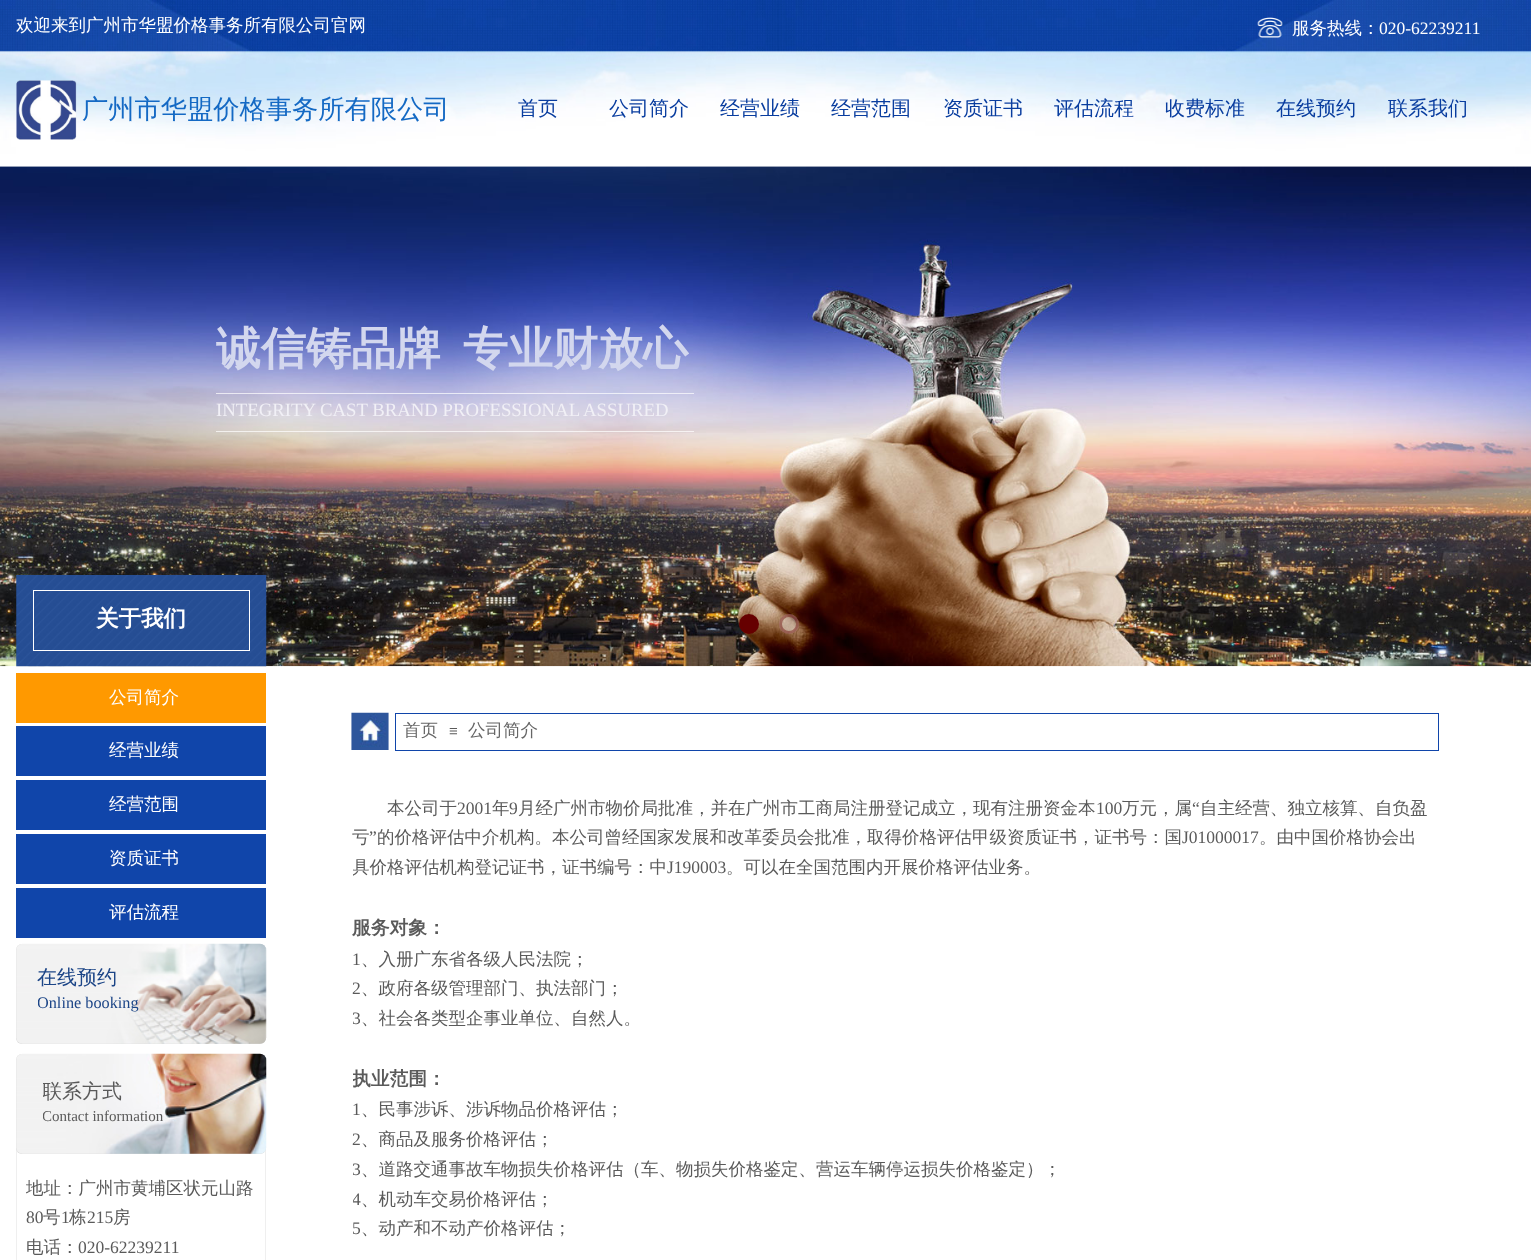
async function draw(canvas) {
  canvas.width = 1531
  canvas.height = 1260
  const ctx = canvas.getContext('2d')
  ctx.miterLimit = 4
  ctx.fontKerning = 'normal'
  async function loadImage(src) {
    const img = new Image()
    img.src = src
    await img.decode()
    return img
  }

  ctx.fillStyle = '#fff'
  ctx.fillRect(0, 0, 1531, 1260)
  ctx.drawImage(await loadImage('image3.png'), 0, 166, 1531, 501)
  ctx.drawImage(await loadImage('image0.png'), 0, 0, 1531, 167)
  ctx.font = '500 17.5px WenQuanYi Zen Hei'
  ctx.fillText('欢迎来到广州市华盟价格事务所有限公司官网', 16, 31)
  ctx.drawImage(await loadImage('image1.png'), 1257, 17, 26, 21)
  ctx.fillText('服务热线：', 1292, 34)
  ctx.font = '17.5px Liberation Serif'
  ctx.fillText('020-62239211', 1379, 34)
  ctx.drawImage(await loadImage('image2.png'), 16, 80, 61, 60)
  ctx.font = '500 26.25px WenQuanYi Zen Hei'
  ctx.fillStyle = '#1469c4'
  ctx.fillText('广州市华盟价格事务所有限公司', 82, 118)
  ctx.font = '500 20px WenQuanYi Zen Hei'
  ctx.fillStyle = '#093d9f'
  ctx.fillText('首页', 518, 115)
  ctx.fillText('公司简介', 609, 115)
  ctx.fillText('经营业绩', 720, 115)
  ctx.fillText('经营范围', 831, 115)
  ctx.fillText('资质证书', 943, 115)
  ctx.fillText('评估流程', 1054, 115)
  ctx.fillText('收费标准', 1165, 115)
  ctx.fillText('在线预约', 1276, 115)
  ctx.fillText('联系我们', 1388, 115)
  ctx.fillStyle = '#600'
  ctx.beginPath()
  ctx.arc(749, 624, 8.5, 0, 2 * Math.PI)
  ctx.fill()
  ctx.strokeStyle = '#600'
  ctx.lineWidth = 3
  ctx.stroke()
  ctx.fillStyle = '#ffffff66'
  ctx.beginPath()
  ctx.arc(789, 624, 10, 0, 2 * Math.PI)
  ctx.fill()
  ctx.beginPath()
  ctx.arc(789, 624, 8.5, 0, 2 * Math.PI)
  ctx.strokeStyle = '#66000066'
  ctx.stroke()
  ctx.save()
  ctx.beginPath()
  ctx.rect(216, 318, 489, 68)
  ctx.clip()
  ctx.font = 'bold 45px WenQuanYi Zen Hei'
  ctx.fillStyle = '#d3d7ee'
  ctx.fillText('诚信铸品牌', 216, 364)
  ctx.restore()
  ctx.font = 'bold 45px WenQuanYi Zen Hei'
  ctx.fillStyle = '#d3d7ee'
  ctx.fillText('专业财放心', 463, 364)
  ctx.fillStyle = '#ffffffb3'
  ctx.fillRect(216, 393, 478, 1)
  ctx.fillRect(216, 431, 478, 1)
  ctx.font = '18.75px Liberation Serif'
  ctx.fillStyle = '#f1f0f6'
  ctx.fillText('INTEGRITY CAST BRAND PROFESSIONAL ASSURED', 216, 416)
  ctx.drawImage(await loadImage('image4.png'), 16, 575, 251, 92)
  ctx.strokeStyle = '#fff'
  ctx.lineWidth = 1
  ctx.strokeRect(33.5, 590.5, 216, 60)
  ctx.font = 'bold 22.5px WenQuanYi Zen Hei'
  ctx.fillStyle = '#fff'
  ctx.fillText('关于我们', 96, 626)
  ctx.fillStyle = '#f90'
  ctx.fillRect(16, 673, 250, 50)
  ctx.font = '500 17.5px WenQuanYi Zen Hei'
  ctx.fillStyle = '#fff'
  ctx.fillText('公司简介', 109, 703)
  ctx.fillStyle = '#1045aa'
  ctx.fillRect(16, 726, 250, 50)
  ctx.fillStyle = '#fff'
  ctx.fillText('经营业绩', 109, 756)
  ctx.fillStyle = '#1045aa'
  ctx.fillRect(16, 780, 250, 50)
  ctx.fillStyle = '#fff'
  ctx.fillText('经营范围', 109, 810)
  ctx.fillStyle = '#1045aa'
  ctx.fillRect(16, 834, 250, 50)
  ctx.fillStyle = '#fff'
  ctx.fillText('资质证书', 109, 864)
  ctx.fillStyle = '#1045aa'
  ctx.fillRect(16, 888, 250, 50)
  ctx.fillStyle = '#fff'
  ctx.fillText('评估流程', 109, 918)
  ctx.drawImage(await loadImage('image5.png'), 351, 712, 38, 38)
  ctx.strokeStyle = '#1045aa'
  ctx.strokeRect(395.5, 713.5, 1043, 37)
  ctx.fillStyle = '#666'
  ctx.fillText('首页', 403, 736)
  ctx.font = '15px Liberation Sans'
  ctx.fillStyle = '#5a5a5a'
  ctx.fillText('≡', 449, 736)
  ctx.font = '500 17.5px WenQuanYi Zen Hei'
  ctx.fillStyle = '#666'
  ctx.fillText('公司简介', 468, 736)
  ctx.fillStyle = '#d9d9d9'
  ctx.beginPath()
  ctx.roundRect(16, 944, 250, 100, 6)
  ctx.fill()
  ctx.drawImage(await loadImage('image6.png'), 16, 943, 251, 101)
  ctx.font = '500 20px WenQuanYi Zen Hei'
  ctx.fillStyle = '#1c4587'
  ctx.fillText('在线预约', 37, 984)
  ctx.save()
  ctx.beginPath()
  ctx.rect(38, 964, 208, 52)
  ctx.clip()
  ctx.font = '16.25px Liberation Serif'
  ctx.fillText('Online booking', 37, 1008)
  ctx.restore()
  ctx.font = '500 17.5px WenQuanYi Zen Hei'
  ctx.fillStyle = '#5a5a5a'
  ctx.fillText('本公司于', 387, 814)
  ctx.font = '17.5px Liberation Serif'
  ctx.fillText('2001', 457, 814)
  ctx.font = '500 17.5px WenQuanYi Zen Hei'
  ctx.fillText('年', 492, 814)
  ctx.font = '17.5px Liberation Serif'
  ctx.fillText('9', 509, 814)
  ctx.font = '500 17.5px WenQuanYi Zen Hei'
  ctx.fillText('月经广州市物价局批准，并在广州市工商局注册登记成立，现有注册资金本', 518, 814)
  ctx.font = '17.5px Liberation Serif'
  ctx.fillText('100', 1096, 814)
  ctx.font = '500 17.5px WenQuanYi Zen Hei'
  ctx.fillText('万元，属', 1122, 814)
  ctx.font = '17.5px Liberation Serif'
  ctx.fillText('“', 1192, 814)
  ctx.font = '500 17.5px WenQuanYi Zen Hei'
  ctx.fillText('自主经营、独立核算、自负盈', 1200, 814)
  ctx.fillText('亏', 352, 843)
  ctx.font = '17.5px Liberation Serif'
  ctx.fillText('”', 369, 843)
  ctx.font = '500 17.5px WenQuanYi Zen Hei'
  ctx.fillText('的价格评估中介机构。本公司曾经国家发展和改革委员会批准，取得价格评估甲级资质证书，证书号：国', 377, 843)
  ctx.font = '17.5px Liberation Serif'
  ctx.fillText('J01000017', 1182, 843)
  ctx.font = '500 17.5px WenQuanYi Zen Hei'
  ctx.fillText('。由中国价格协会出', 1259, 843)
  ctx.save()
  ctx.beginPath()
  ctx.rect(353, 794, 1081, 466)
  ctx.clip()
  ctx.fillText('具价格评估机构登记证书，证书编号：中', 352, 873)
  ctx.restore()
  ctx.font = '17.5px Liberation Serif'
  ctx.fillText('J190003', 667, 873)
  ctx.font = '500 17.5px WenQuanYi Zen Hei'
  ctx.fillText('。可以在全国范围内开展价格评估业务。', 726, 873)
  ctx.font = 'bold 18.75px WenQuanYi Zen Hei'
  ctx.fillText('服务对象：', 352, 934)
  ctx.font = '17.5px Liberation Serif'
  ctx.fillText('1', 352, 965)
  ctx.font = '500 17.5px WenQuanYi Zen Hei'
  ctx.fillText('、入册广东省各级人民法院；', 361, 965)
  ctx.font = '17.5px Liberation Serif'
  ctx.fillText('2', 352, 994)
  ctx.font = '500 17.5px WenQuanYi Zen Hei'
  ctx.fillText('、政府各级管理部门、执法部门；', 361, 994)
  ctx.save()
  ctx.beginPath()
  ctx.rect(353, 794, 1081, 466)
  ctx.clip()
  ctx.font = '17.5px Liberation Serif'
  ctx.fillText('3', 352, 1024)
  ctx.restore()
  ctx.fillText('、社会各类型企事业单位、自然人。', 361, 1024)
  ctx.save()
  ctx.beginPath()
  ctx.rect(353, 794, 1081, 466)
  ctx.clip()
  ctx.font = 'bold 18.75px WenQuanYi Zen Hei'
  ctx.fillText('执业范围：', 352, 1085)
  ctx.restore()
  ctx.font = '17.5px Liberation Serif'
  ctx.fillText('1', 352, 1115)
  ctx.font = '500 17.5px WenQuanYi Zen Hei'
  ctx.fillText('、民事涉诉、涉诉物品价格评估；', 361, 1115)
  ctx.font = '17.5px Liberation Serif'
  ctx.fillText('2', 352, 1145)
  ctx.font = '500 17.5px WenQuanYi Zen Hei'
  ctx.fillText('、商品及服务价格评估；', 361, 1145)
  ctx.save()
  ctx.beginPath()
  ctx.rect(353, 794, 1081, 466)
  ctx.clip()
  ctx.font = '17.5px Liberation Serif'
  ctx.fillText('3', 352, 1175)
  ctx.restore()
  ctx.fillText('、道路交通事故车物损失价格评估（车、物损失价格鉴定、营运车辆停运损失价格鉴定）；', 361, 1175)
  ctx.save()
  ctx.beginPath()
  ctx.rect(353, 794, 1081, 466)
  ctx.clip()
  ctx.font = '17.5px Liberation Serif'
  ctx.fillText('4', 352, 1205)
  ctx.restore()
  ctx.fillText('、机动车交易价格评估；', 361, 1205)
  ctx.font = '17.5px Liberation Serif'
  ctx.fillText('5', 352, 1234)
  ctx.font = '500 17.5px WenQuanYi Zen Hei'
  ctx.fillText('、动产和不动产价格评估；', 361, 1234)
  ctx.strokeStyle = '#efefef'
  ctx.strokeRect(16.5, 1129.5, 249, 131)
  ctx.fillStyle = '#d9d9d9'
  ctx.beginPath()
  ctx.roundRect(16, 1054, 250, 100, 6)
  ctx.fill()
  ctx.drawImage(await loadImage('image7.png'), 16, 1053, 251, 101)
  ctx.save()
  ctx.beginPath()
  ctx.rect(43, 1078, 193, 52)
  ctx.clip()
  ctx.font = '500 20px WenQuanYi Zen Hei'
  ctx.fillStyle = '#5a5a5a'
  ctx.fillText('联系方式', 42, 1098)
  ctx.font = '15px Liberation Serif'
  ctx.fillText('Contact information', 42, 1121)
  ctx.restore()
  ctx.fillStyle = '#5a5a5a'
  ctx.fillText('地址：广州市黄埔区状元山路', 26, 1194)
  ctx.font = '17.5px Liberation Serif'
  ctx.fillText('80', 26, 1223)
  ctx.font = '500 17.5px WenQuanYi Zen Hei'
  ctx.fillText('号', 43, 1223)
  ctx.font = '17.5px Liberation Serif'
  ctx.fillText('1', 61, 1223)
  ctx.font = '500 17.5px WenQuanYi Zen Hei'
  ctx.fillText('栋', 69, 1223)
  ctx.font = '17.5px Liberation Serif'
  ctx.fillText('215', 87, 1223)
  ctx.font = '500 17.5px WenQuanYi Zen Hei'
  ctx.fillText('房', 113, 1223)
  ctx.fillText('电话：', 26, 1253)
  ctx.font = '17.5px Liberation Serif'
  ctx.fillText('020-62239211', 78, 1253)
}

draw(document.querySelector('canvas'))
